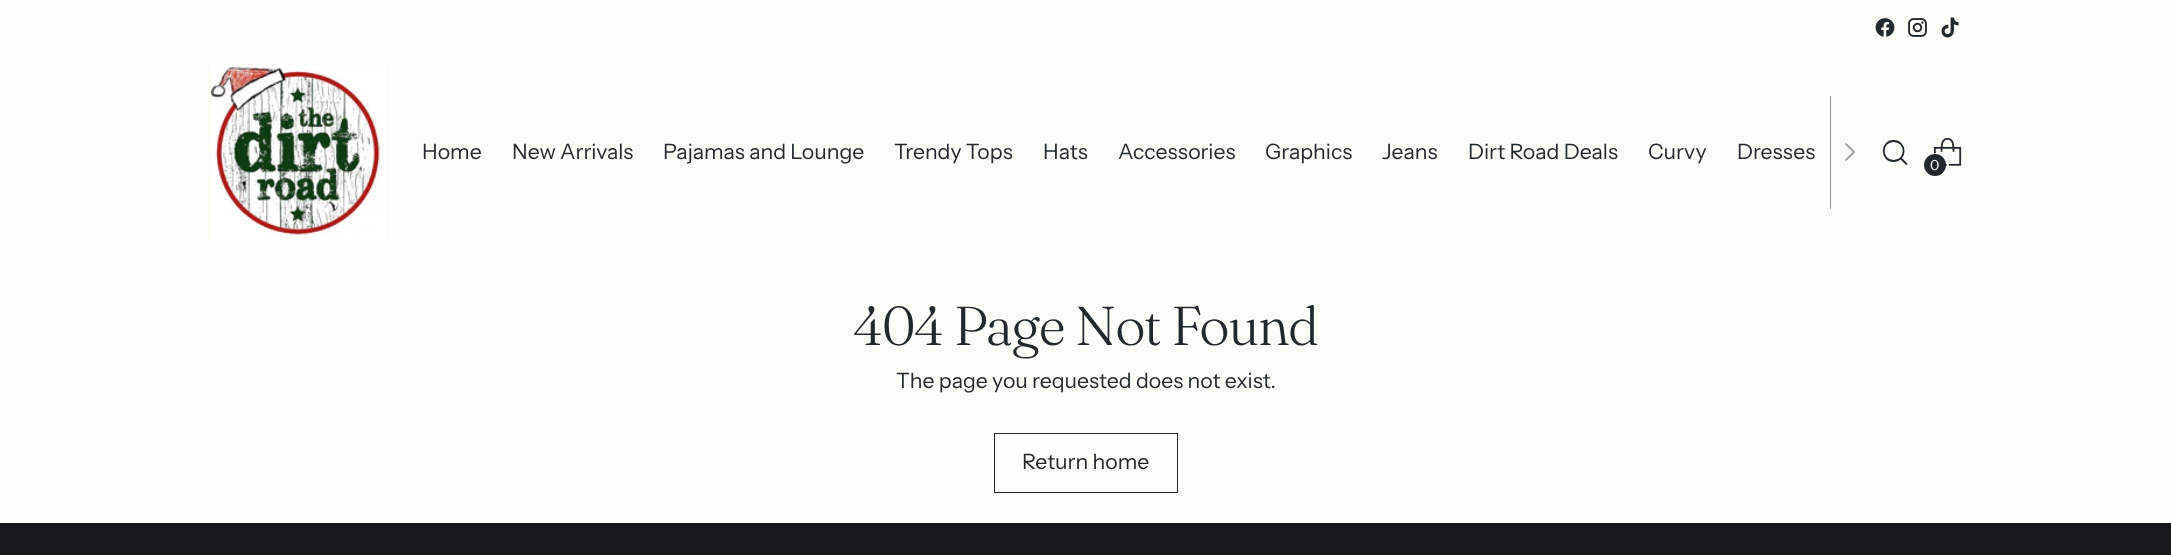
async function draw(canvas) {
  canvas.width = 2171
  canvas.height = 555
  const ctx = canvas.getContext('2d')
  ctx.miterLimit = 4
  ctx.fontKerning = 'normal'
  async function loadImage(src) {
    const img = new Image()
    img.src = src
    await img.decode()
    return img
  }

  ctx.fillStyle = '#fcfcf9'
  ctx.fillRect(0, 0, 2171, 555)
  ctx.drawImage(await loadImage('image0.png'), 1875, 18, 20, 19)
  ctx.drawImage(await loadImage('image1.png'), 1908, 18, 19, 19)
  ctx.drawImage(await loadImage('image2.png'), 1941, 17, 18, 21)
  ctx.drawImage(await loadImage('image3.png'), 211, 65, 175, 175)
  ctx.font = '21.25px Instrument Sans'
  ctx.fillStyle = '#22292d'
  ctx.fillText('Home', 422, 159)
  ctx.fillText('New Arrivals', 512, 159)
  ctx.fillText('Pajamas and Lounge', 663, 159)
  ctx.fillText('Trendy Tops', 894, 159)
  ctx.fillText('Hats', 1043, 159)
  ctx.fillText('Accessories', 1118, 159)
  ctx.fillText('Graphics', 1265, 159)
  ctx.fillText('Jeans', 1382, 159)
  ctx.fillText('Dirt Road Deals', 1468, 159)
  ctx.fillText('Curvy', 1648, 159)
  ctx.fillText('Dresses', 1737, 159)
  ctx.fillStyle = '#8f9393'
  ctx.fillRect(1830, 96, 1, 113)
  ctx.beginPath()
  ctx.moveTo(1845.5, 160.5)
  ctx.lineTo(1854, 152)
  ctx.lineTo(1845.5, 143.5)
  ctx.strokeStyle = '#8f9393'
  ctx.lineWidth = 1.7
  ctx.stroke()
  ctx.beginPath()
  ctx.moveTo(1893.5, 161)
  ctx.bezierCurveTo(1907, 161, 1907, 141, 1893.5, 141)
  ctx.bezierCurveTo(1880.5, 141, 1880.5, 161, 1893.5, 161)
  ctx.closePath()
  ctx.strokeStyle = '#22292d'
  ctx.lineWidth = 1.8
  ctx.lineCap = 'round'
  ctx.stroke()
  ctx.beginPath()
  ctx.moveTo(1901, 158.5)
  ctx.lineTo(1907, 164.5)
  ctx.lineCap = 'butt'
  ctx.stroke()
  ctx.drawImage(await loadImage('image4.png'), 1933, 138, 29, 28)
  ctx.beginPath()
  ctx.arc(1936, 166, 12, 0, 2 * Math.PI)
  ctx.strokeStyle = '#fcfcf9'
  ctx.lineWidth = 2
  ctx.stroke()
  ctx.fillStyle = '#22292d'
  ctx.beginPath()
  ctx.arc(1935, 165, 11, 0, 2 * Math.PI)
  ctx.fill()
  ctx.font = '14px Instrument Sans'
  ctx.fillStyle = '#fcfcf9'
  ctx.fillText('0', 1930, 170)
  ctx.letterSpacing = '-1.4px'
  ctx.font = '300 54.75px Fraunces'
  ctx.fillStyle = '#22292d'
  ctx.fillText('404 Page Not Found', 853, 345)
  ctx.letterSpacing = '0px'
  ctx.font = '21.25px Instrument Sans'
  ctx.fillText('The page you requested does not exist.', 896, 388)
  ctx.strokeStyle = '#242526'
  ctx.lineWidth = 1
  ctx.strokeRect(994.5, 433.5, 183, 59)
  ctx.fillStyle = '#242526'
  ctx.fillText('Return home', 1022, 469)
  ctx.fillStyle = '#171819'
  ctx.fillRect(0, 523, 2171, 32)
}

draw(document.querySelector('canvas'))
